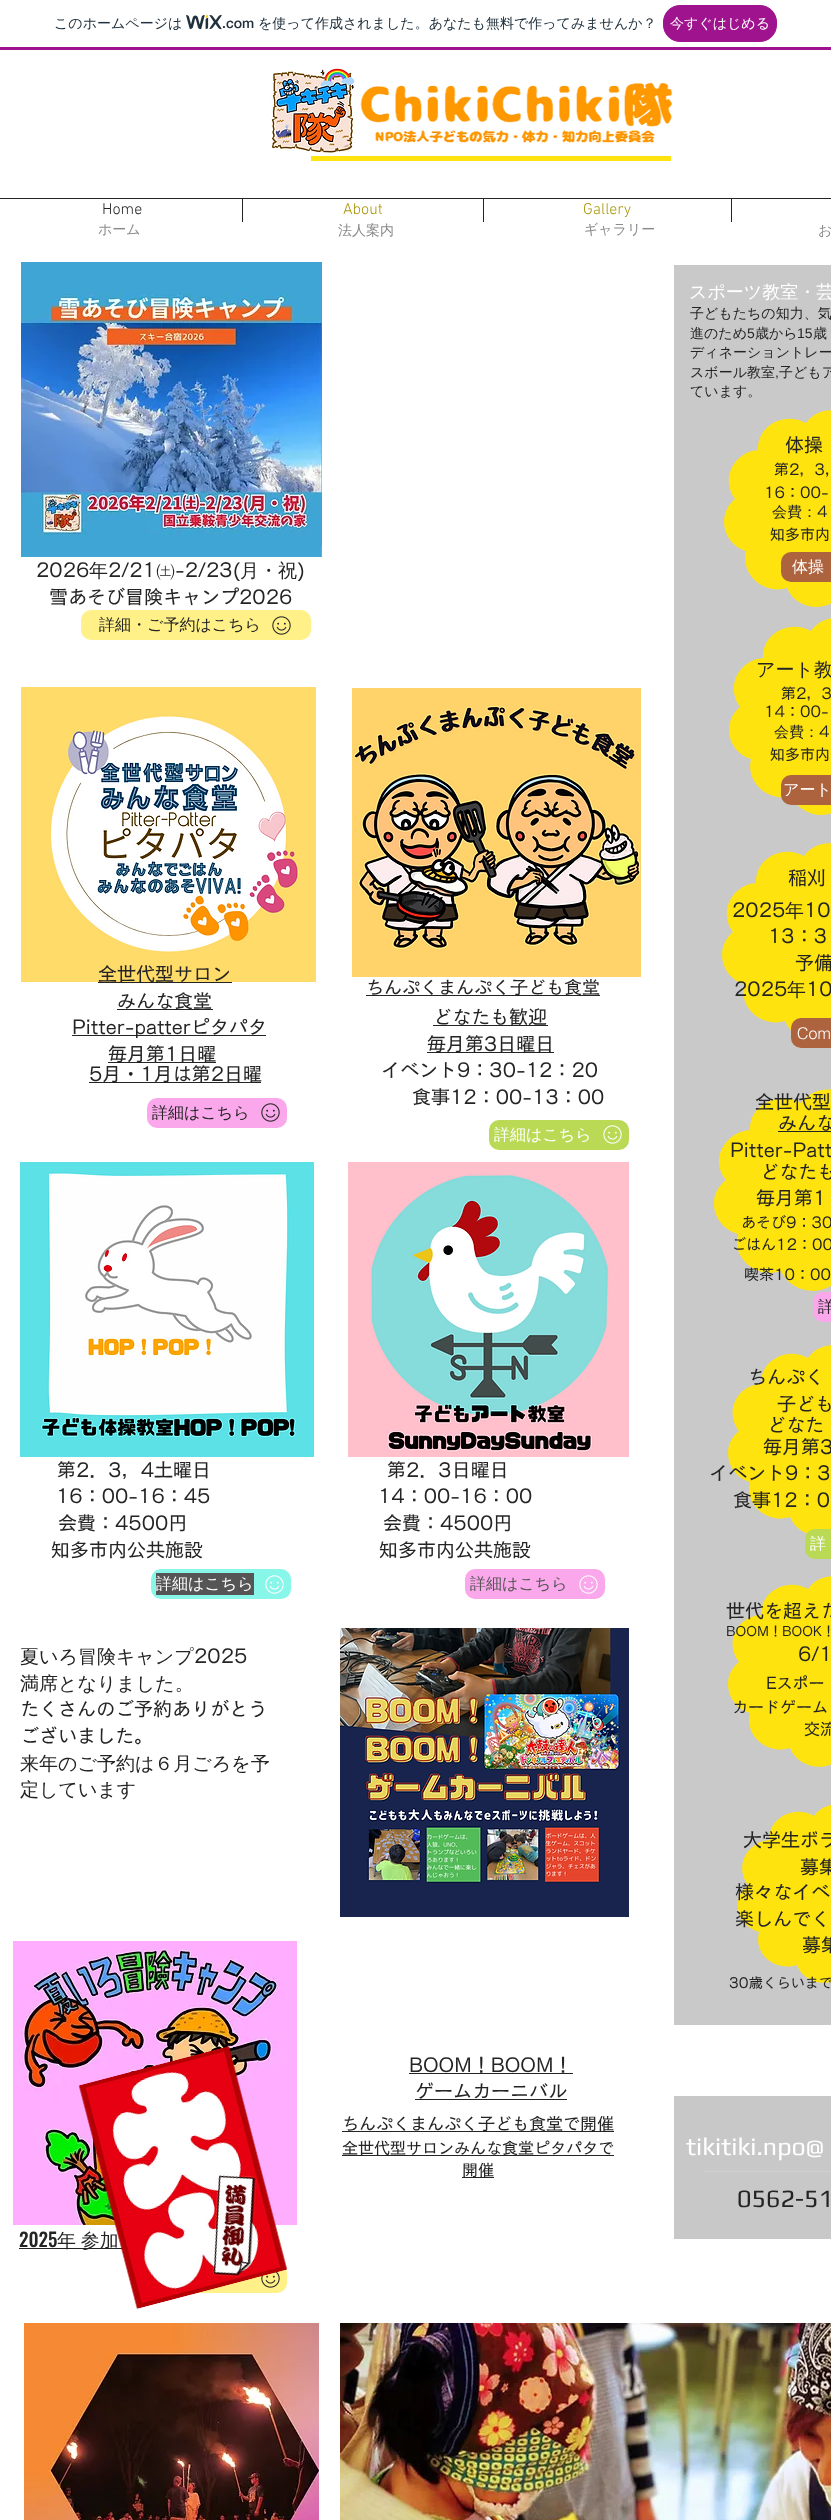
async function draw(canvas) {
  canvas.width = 831
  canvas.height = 2520
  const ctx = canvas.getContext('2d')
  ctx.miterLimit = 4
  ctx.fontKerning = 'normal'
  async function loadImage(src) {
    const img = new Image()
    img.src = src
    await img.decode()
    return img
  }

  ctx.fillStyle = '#fff'
  ctx.fillRect(0, 0, 831, 2520)
  ctx.fillStyle = '#a0138e'
  ctx.fillRect(0, 47, 831, 3)
  ctx.font = '500 14px WenQuanYi Zen Hei'
  ctx.fillStyle = '#20303c'
  ctx.fillText('このホームページは', 54, 28)
  ctx.drawImage(await loadImage('image0.png'), 186, 15, 36, 15)
  ctx.font = '500 14px "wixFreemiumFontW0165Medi"'
  ctx.fillText('.com', 222, 28)
  ctx.font = '500 14px WenQuanYi Zen Hei'
  ctx.fillText('を使って作成されました。あなたも無料で作ってみませんか？', 258, 28)
  ctx.fillStyle = '#a0138e'
  ctx.beginPath()
  ctx.roundRect(663.5, 5.5, 113, 36, 16.5)
  ctx.fill()
  ctx.strokeStyle = '#a0138e'
  ctx.stroke()
  ctx.fillStyle = '#fff'
  ctx.fillText('今すぐはじめる', 670, 28)
  ctx.drawImage(await loadImage('image1.png'), 270, 68, 85, 86)
  ctx.drawImage(await loadImage('image2.png'), 360, 81, 313, 62)
  ctx.fillStyle = '#ffe30f'
  ctx.fillRect(311, 156, 360, 5)
  ctx.fillStyle = '#242424'
  ctx.fillRect(0, 198, 831, 1)
  ctx.font = '300 16px "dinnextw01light"'
  ctx.fillText('Home', 102, 214)
  ctx.fillRect(242, 199, 1, 23)
  ctx.fillStyle = '#aa970a'
  ctx.fillText('About', 343, 214)
  ctx.fillStyle = '#242424'
  ctx.fillRect(483, 199, 1, 23)
  ctx.fillStyle = '#aa970a'
  ctx.fillText('Gallery', 583, 214)
  ctx.fillStyle = '#242424'
  ctx.fillRect(731, 199, 1, 23)
  ctx.font = '500 14px WenQuanYi Zen Hei'
  ctx.fillStyle = '#8b8b8b'
  ctx.fillText('ホーム', 98, 234)
  ctx.fillText('法人案内', 338, 235)
  ctx.fillText('ギャラリー', 584, 234)
  ctx.fillText('お', 818, 235)
  ctx.drawImage(await loadImage('image3.png'), 21, 262, 301, 295)
  ctx.fillStyle = '#c9c9c9'
  ctx.fillRect(674, 265, 157, 1760)
  ctx.font = '500 18px WenQuanYi Zen Hei'
  ctx.fillStyle = '#fff'
  ctx.fillText('スポーツ教室・芸', 689, 298)
  ctx.font = '500 14px WenQuanYi Zen Hei'
  ctx.fillStyle = '#242424'
  ctx.fillText('子どもたちの知力、気', 690, 318)
  ctx.fillText('進のため', 690, 338)
  ctx.font = '14px Liberation Sans'
  ctx.fillText('5', 747, 338)
  ctx.font = '500 14px WenQuanYi Zen Hei'
  ctx.fillText('歳から', 755, 338)
  ctx.font = '14px Liberation Sans'
  ctx.fillText('15', 797, 338)
  ctx.font = '500 14px WenQuanYi Zen Hei'
  ctx.fillText('歳', 813, 338)
  ctx.fillText('ディネーショントレー', 690, 357)
  ctx.fillText('スボール教室', 690, 377)
  ctx.font = '14px Liberation Sans'
  ctx.fillText(',', 775, 377)
  ctx.font = '500 14px WenQuanYi Zen Hei'
  ctx.fillText('子どもア', 779, 377)
  ctx.fillText('ています。', 690, 396)
  ctx.fillStyle = '#ffe30f'
  ctx.beginPath()
  ctx.moveTo(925, 491)
  ctx.bezierCurveTo(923, 479, 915, 471, 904, 467)
  ctx.bezierCurveTo(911, 442, 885, 422, 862, 431)
  ctx.bezierCurveTo(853, 407, 820, 403, 806, 423)
  ctx.bezierCurveTo(785, 411, 757, 425, 758, 450)
  ctx.bezierCurveTo(734, 452, 720, 479, 735, 499)
  ctx.bezierCurveTo(716, 515, 723, 544, 746, 551)
  ctx.bezierCurveTo(740, 575, 765, 595, 787, 588)
  ctx.bezierCurveTo(796, 610, 828, 614, 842, 594)
  ctx.bezierCurveTo(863, 607, 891, 593, 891, 568)
  ctx.bezierCurveTo(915, 567, 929, 540, 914, 520)
  ctx.bezierCurveTo(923, 513, 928, 502, 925, 491)
  ctx.fill('evenodd')
  ctx.font = '500 19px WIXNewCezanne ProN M'
  ctx.fillStyle = '#242424'
  ctx.fillText('体操', 785, 452)
  ctx.font = '500 15px WIXNewCezanne ProN M'
  ctx.fillText('第2，3，', 774, 475)
  ctx.fillText('16：00-', 764, 498)
  ctx.font = '500 15px WenQuanYi Zen Hei'
  ctx.fillText('会費：', 772, 517)
  ctx.font = '500 15px WIXNewCezanne ProN M'
  ctx.fillText('4', 817, 517)
  ctx.fillText('知多市内', 770, 540)
  ctx.fillStyle = '#ae633f'
  ctx.beginPath()
  ctx.roundRect(781, 552, 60, 30, 10)
  ctx.fill()
  ctx.font = '500 16px WenQuanYi Zen Hei'
  ctx.fillStyle = '#fff'
  ctx.fillText('体操', 792, 572)
  ctx.fillStyle = '#ffe30f'
  ctx.beginPath()
  ctx.moveTo(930, 699)
  ctx.bezierCurveTo(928, 687, 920, 679, 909, 675)
  ctx.bezierCurveTo(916, 650, 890, 630, 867, 639)
  ctx.bezierCurveTo(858, 615, 825, 611, 811, 631)
  ctx.bezierCurveTo(790, 619, 762, 633, 763, 658)
  ctx.bezierCurveTo(739, 660, 725, 687, 740, 707)
  ctx.bezierCurveTo(721, 723, 728, 752, 751, 759)
  ctx.bezierCurveTo(745, 783, 770, 803, 792, 796)
  ctx.bezierCurveTo(801, 818, 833, 822, 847, 802)
  ctx.bezierCurveTo(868, 815, 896, 801, 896, 776)
  ctx.bezierCurveTo(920, 775, 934, 748, 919, 728)
  ctx.bezierCurveTo(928, 721, 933, 710, 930, 699)
  ctx.fill('evenodd')
  ctx.font = '500 19px WenQuanYi Zen Hei'
  ctx.fillStyle = '#242424'
  ctx.fillText('アート教', 756, 676)
  ctx.font = '500 15px WIXNewCezanne ProN M'
  ctx.fillText('第2，3', 781, 699)
  ctx.fillText('14：00-', 764, 717)
  ctx.font = '500 15px WenQuanYi Zen Hei'
  ctx.fillText('会費：', 774, 737)
  ctx.font = '500 15px WIXNewCezanne ProN M'
  ctx.fillText('4', 819, 737)
  ctx.fillText('知多市内', 770, 760)
  ctx.fillStyle = '#ae633f'
  ctx.beginPath()
  ctx.roundRect(781, 775, 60, 30, 10)
  ctx.fill()
  ctx.font = '500 16px WenQuanYi Zen Hei'
  ctx.fillStyle = '#fff'
  ctx.fillText('アート', 783, 795)
  ctx.fillStyle = '#ffe30f'
  ctx.beginPath()
  ctx.moveTo(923, 924)
  ctx.bezierCurveTo(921, 912, 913, 904, 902, 900)
  ctx.bezierCurveTo(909, 875, 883, 855, 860, 864)
  ctx.bezierCurveTo(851, 840, 818, 836, 804, 856)
  ctx.bezierCurveTo(783, 844, 755, 858, 756, 883)
  ctx.bezierCurveTo(732, 885, 718, 912, 733, 932)
  ctx.bezierCurveTo(714, 948, 721, 977, 744, 984)
  ctx.bezierCurveTo(738, 1008, 763, 1028, 785, 1021)
  ctx.bezierCurveTo(794, 1043, 826, 1047, 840, 1027)
  ctx.bezierCurveTo(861, 1040, 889, 1026, 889, 1001)
  ctx.bezierCurveTo(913, 1000, 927, 973, 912, 953)
  ctx.bezierCurveTo(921, 946, 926, 935, 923, 924)
  ctx.fill('evenodd')
  ctx.font = '500 19px WIXNewCezanne ProN M'
  ctx.fillStyle = '#242424'
  ctx.fillText('稲刈', 788, 885)
  ctx.fillText('2025', 732, 917)
  ctx.font = '500 19px WenQuanYi Zen Hei'
  ctx.fillText('年', 785, 917)
  ctx.font = '500 19px WIXNewCezanne ProN M'
  ctx.fillText('10', 804, 917)
  ctx.fillText('13：3', 768, 943)
  ctx.fillText('予備', 795, 970)
  ctx.fillText('2025', 734, 996)
  ctx.font = '500 19px WenQuanYi Zen Hei'
  ctx.fillText('年', 787, 996)
  ctx.font = '500 19px WIXNewCezanne ProN M'
  ctx.fillText('10', 806, 996)
  ctx.fillStyle = '#ae633f'
  ctx.beginPath()
  ctx.roundRect(791, 1018, 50, 30, 10)
  ctx.fill()
  ctx.font = '300 16px helvetica'
  ctx.fillStyle = '#fff'
  ctx.fillText('Com', 797, 1039)
  ctx.fillStyle = '#ffe30f'
  ctx.beginPath()
  ctx.moveTo(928, 1172)
  ctx.bezierCurveTo(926, 1160, 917, 1151, 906, 1148)
  ctx.bezierCurveTo(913, 1121, 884, 1102, 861, 1111)
  ctx.bezierCurveTo(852, 1086, 816, 1082, 801, 1103)
  ctx.bezierCurveTo(780, 1091, 749, 1104, 750, 1130)
  ctx.bezierCurveTo(725, 1132, 709, 1160, 726, 1180)
  ctx.bezierCurveTo(705, 1196, 713, 1227, 738, 1234)
  ctx.bezierCurveTo(731, 1259, 758, 1279, 781, 1271)
  ctx.bezierCurveTo(791, 1294, 825, 1298, 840, 1278)
  ctx.bezierCurveTo(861, 1290, 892, 1278, 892, 1251)
  ctx.bezierCurveTo(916, 1250, 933, 1223, 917, 1202)
  ctx.bezierCurveTo(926, 1195, 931, 1184, 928, 1172)
  ctx.fill('evenodd')
  ctx.font = '500 19px WIXNewCezanne ProN M'
  ctx.fillStyle = '#242424'
  ctx.fillText('全世代型', 755, 1109)
  ctx.fillText('どなたも', 760, 1179)
  ctx.fillText('毎月第1', 756, 1205)
  ctx.font = '500 15px WIXNewCezanne ProN M'
  ctx.fillText('あそび9：30', 741, 1228)
  ctx.fillText('ごはん12：00', 731, 1250)
  ctx.font = '500 19px WIXNewCezanne ProN M'
  ctx.fillText('みんな', 778, 1130)
  ctx.fillRect(778, 1131, 53, 1)
  ctx.fillText('Pitter-Patt', 730, 1157)
  ctx.font = '500 15px WIXNewCezanne ProN M'
  ctx.fillText('喫茶10：00', 744, 1280)
  ctx.fillStyle = '#faa8eb'
  ctx.beginPath()
  ctx.roundRect(813, 1292, 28, 30, 10)
  ctx.fill()
  ctx.font = '500 16px WenQuanYi Zen Hei'
  ctx.fillStyle = '#242424'
  ctx.fillText('詳', 818, 1312)
  ctx.fillStyle = '#ffe30f'
  ctx.beginPath()
  ctx.moveTo(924, 1423)
  ctx.bezierCurveTo(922, 1412, 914, 1404, 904, 1401)
  ctx.bezierCurveTo(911, 1376, 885, 1357, 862, 1365)
  ctx.bezierCurveTo(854, 1342, 822, 1338, 808, 1358)
  ctx.bezierCurveTo(788, 1346, 760, 1360, 761, 1384)
  ctx.bezierCurveTo(737, 1385, 724, 1412, 739, 1431)
  ctx.bezierCurveTo(720, 1446, 727, 1475, 750, 1482)
  ctx.bezierCurveTo(744, 1505, 768, 1524, 790, 1517)
  ctx.bezierCurveTo(799, 1539, 830, 1542, 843, 1524)
  ctx.bezierCurveTo(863, 1536, 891, 1523, 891, 1499)
  ctx.bezierCurveTo(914, 1497, 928, 1471, 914, 1452)
  ctx.bezierCurveTo(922, 1445, 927, 1434, 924, 1423)
  ctx.fill('evenodd')
  ctx.font = '500 19px WIXNewCezanne ProN M'
  ctx.fillStyle = '#242424'
  ctx.fillText('ちんぷく', 748, 1384)
  ctx.fillText('子ども', 777, 1411)
  ctx.fillText('どなた', 767, 1432)
  ctx.fillText('毎月第3', 763, 1454)
  ctx.fillText('イベント9：3', 709, 1480)
  ctx.fillText('食事12：0', 733, 1507)
  ctx.fillStyle = '#bada55'
  ctx.beginPath()
  ctx.roundRect(805, 1529, 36, 30, 10)
  ctx.fill()
  ctx.font = '500 16px WenQuanYi Zen Hei'
  ctx.fillStyle = '#fff'
  ctx.fillText('詳', 810, 1549)
  ctx.fillStyle = '#ffe30f'
  ctx.beginPath()
  ctx.moveTo(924, 1654)
  ctx.bezierCurveTo(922, 1643, 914, 1635, 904, 1632)
  ctx.bezierCurveTo(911, 1607, 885, 1588, 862, 1596)
  ctx.bezierCurveTo(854, 1573, 822, 1569, 808, 1589)
  ctx.bezierCurveTo(788, 1577, 760, 1591, 761, 1615)
  ctx.bezierCurveTo(737, 1616, 724, 1643, 739, 1662)
  ctx.bezierCurveTo(720, 1677, 727, 1706, 750, 1713)
  ctx.bezierCurveTo(744, 1736, 768, 1755, 790, 1748)
  ctx.bezierCurveTo(799, 1770, 830, 1773, 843, 1755)
  ctx.bezierCurveTo(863, 1767, 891, 1754, 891, 1730)
  ctx.bezierCurveTo(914, 1728, 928, 1702, 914, 1683)
  ctx.bezierCurveTo(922, 1676, 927, 1665, 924, 1654)
  ctx.fill('evenodd')
  ctx.font = '500 19px WIXNewCezanne ProN M'
  ctx.fillStyle = '#242424'
  ctx.fillText('世代を超えた', 726, 1618)
  ctx.font = '500 13px WIXNewCezanne ProN M'
  ctx.fillText('BOOM！BOOK！', 726, 1636)
  ctx.font = '500 19px WIXNewCezanne ProN M'
  ctx.fillText('6/1', 798, 1661)
  ctx.font = '500 16px WIXNewCezanne ProN M'
  ctx.fillText('Eスポー', 766, 1689)
  ctx.fillText('カードゲーム', 732, 1713)
  ctx.fillText('交流', 804, 1735)
  ctx.fillStyle = '#ffe30f'
  ctx.beginPath()
  ctx.moveTo(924, 1877)
  ctx.bezierCurveTo(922, 1867, 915, 1859, 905, 1856)
  ctx.bezierCurveTo(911, 1833, 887, 1815, 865, 1823)
  ctx.bezierCurveTo(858, 1801, 827, 1798, 814, 1816)
  ctx.bezierCurveTo(795, 1805, 769, 1817, 769, 1840)
  ctx.bezierCurveTo(747, 1842, 734, 1867, 748, 1885)
  ctx.bezierCurveTo(730, 1899, 737, 1926, 759, 1932)
  ctx.bezierCurveTo(753, 1955, 776, 1972, 797, 1965)
  ctx.bezierCurveTo(805, 1986, 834, 1989, 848, 1971)
  ctx.bezierCurveTo(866, 1983, 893, 1971, 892, 1948)
  ctx.bezierCurveTo(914, 1947, 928, 1922, 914, 1904)
  ctx.bezierCurveTo(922, 1898, 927, 1888, 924, 1877)
  ctx.fill('evenodd')
  ctx.font = '500 19px WIXNewCezanne ProN M'
  ctx.fillStyle = '#242424'
  ctx.fillText('大学生ボラ', 743, 1847)
  ctx.fillText('募集', 800, 1874)
  ctx.fillText('様々なイベ', 735, 1899)
  ctx.fillText('楽しんでく', 735, 1926)
  ctx.fillText('募集', 802, 1952)
  ctx.font = '500 14px WIXNewCezanne ProN M'
  ctx.fillText('30歳くらいまで', 729, 1988)
  ctx.font = '500 19px WIXNewCezanne ProN M'
  ctx.fillText('2026', 36, 577)
  ctx.font = '500 19px WenQuanYi Zen Hei'
  ctx.fillText('年', 89, 577)
  ctx.font = '500 19px WIXNewCezanne ProN M'
  ctx.fillText('2/21', 108, 577)
  ctx.font = '500 19px WenQuanYi Zen Hei'
  ctx.fillText('㈯', 156, 577)
  ctx.font = '500 19px WIXNewCezanne ProN M'
  ctx.fillText('-2/23(', 175, 577)
  ctx.font = '500 19px WenQuanYi Zen Hei'
  ctx.fillText('月・祝', 240, 577)
  ctx.font = '500 19px WIXNewCezanne ProN M'
  ctx.fillText(')', 297, 577)
  ctx.fillText('雪あそび冒険キャンプ2026', 49, 604)
  ctx.fillStyle = '#fff187'
  ctx.beginPath()
  ctx.roundRect(81, 610, 230, 30, 10)
  ctx.fill()
  ctx.font = '500 16px WenQuanYi Zen Hei'
  ctx.fillStyle = '#242424'
  ctx.fillText('詳細・ご予約はこちら', 99, 630)
  ctx.drawImage(await loadImage('image4.png'), 272, 616, 19, 19)
  ctx.drawImage(await loadImage('image5.png'), 21, 687, 295, 295)
  ctx.drawImage(await loadImage('image6.png'), 352, 688, 289, 289)
  ctx.fillRect(98, 982, 134, 1)
  ctx.font = '500 19px WIXNewCezanne ProN M'
  ctx.fillText('全世代型サロン', 98, 981)
  ctx.fillRect(366, 995, 234, 1)
  ctx.font = '500 18px WIXNewCezanne ProN M'
  ctx.fillText('ちんぷくまんぷく子ども食堂', 366, 994)
  ctx.fillRect(117, 1009, 96, 1)
  ctx.font = '500 19px WIXNewCezanne ProN M'
  ctx.fillText('みんな食堂', 117, 1008)
  ctx.fillRect(72, 1035, 194, 1)
  ctx.fillText('Pitter-patterピタパタ', 72, 1034)
  ctx.fillRect(433, 1025, 115, 1)
  ctx.fillText('どなたも歓迎', 433, 1024)
  ctx.fillRect(108, 1062, 108, 1)
  ctx.fillText('毎月第1日曜', 108, 1061)
  ctx.fillRect(427, 1052, 127, 1)
  ctx.fillText('毎月第3日曜日', 427, 1051)
  ctx.fillRect(89, 1082, 172, 1)
  ctx.fillText('5月・1月は第2日曜', 89, 1081)
  ctx.fillText('イベント9：30-12：20', 381, 1077)
  ctx.fillText('食事12：00-13：00', 412, 1104)
  ctx.fillStyle = '#faa8eb'
  ctx.beginPath()
  ctx.roundRect(147, 1098, 140, 30, 10)
  ctx.fill()
  ctx.font = '500 16px WenQuanYi Zen Hei'
  ctx.fillStyle = '#242424'
  ctx.fillText('詳細はこちら', 152, 1118)
  ctx.drawImage(await loadImage('image7.png'), 261, 1103, 19, 19)
  ctx.fillStyle = '#bada55'
  ctx.beginPath()
  ctx.roundRect(489, 1120, 140, 30, 10)
  ctx.fill()
  ctx.fillStyle = '#fff'
  ctx.fillText('詳細はこちら', 494, 1140)
  ctx.drawImage(await loadImage('image8.png'), 603, 1125, 19, 19)
  ctx.drawImage(await loadImage('image9.png'), 20, 1162, 294, 295)
  ctx.drawImage(await loadImage('image10.png'), 348, 1162, 281, 295)
  ctx.font = '500 19px WIXNewCezanne ProN M'
  ctx.fillStyle = '#242424'
  ctx.fillText('第2．3，4土曜日', 57, 1477)
  ctx.fillText('第2．3日曜日', 387, 1477)
  ctx.fillText('16：00-16：45', 56, 1503)
  ctx.fillText('14：00-16：00', 378, 1503)
  ctx.fillText('会費：4500円', 58, 1530)
  ctx.fillText('会費：4500円', 383, 1530)
  ctx.fillText('知多市内公共施設', 51, 1557)
  ctx.fillText('知多市内公共施設', 379, 1557)
  ctx.fillStyle = '#88f7ea'
  ctx.beginPath()
  ctx.roundRect(151, 1569, 140, 30, 10)
  ctx.fill()
  ctx.fillStyle = '#555'
  ctx.fillRect(156, 1573, 98, 22)
  ctx.font = '500 16px WenQuanYi Zen Hei'
  ctx.fillStyle = '#fff'
  ctx.fillText('詳細はこちら', 156, 1589)
  ctx.drawImage(await loadImage('image11.png'), 265, 1575, 19, 19)
  ctx.fillStyle = '#faa8eb'
  ctx.beginPath()
  ctx.roundRect(465, 1569, 140, 30, 10)
  ctx.fill()
  ctx.fillStyle = '#555'
  ctx.fillText('詳細はこちら', 470, 1589)
  ctx.drawImage(await loadImage('image12.png'), 579, 1575, 19, 19)
  ctx.font = '500 19px WenQuanYi Zen Hei'
  ctx.fillStyle = '#242424'
  ctx.fillText('夏いろ冒険キャンプ', 20, 1663)
  ctx.font = '500 19px WIXNewCezanne ProN M'
  ctx.fillText('2025', 194, 1663)
  ctx.font = '500 19px WenQuanYi Zen Hei'
  ctx.fillText('満席となりました。', 20, 1690)
  ctx.font = '500 19px WIXNewCezanne ProN M'
  ctx.fillText('たくさんのご予約ありがとう', 20, 1716)
  ctx.fillText('ございました。', 20, 1743)
  ctx.font = '500 19px WenQuanYi Zen Hei'
  ctx.fillText('来年のご予約は６月ごろを予', 20, 1770)
  ctx.fillText('定しています', 20, 1796)
  ctx.drawImage(await loadImage('image13.png'), 340, 1628, 289, 289)
  ctx.drawImage(await loadImage('image14.png'), 13, 1941, 284, 284)
  ctx.fillRect(19, 2248, 105, 1)
  ctx.wordSpacing = '-1px'
  ctx.fillText('年 参加', 57, 2247)
  ctx.fillStyle = '#fff187'
  ctx.beginPath()
  ctx.roundRect(147, 2263, 140, 30, 10)
  ctx.fill()
  ctx.drawImage(await loadImage('image16.png'), 261, 2272, 19, 16)
  ctx.drawImage(await loadImage('image15.png'), 78, 2046, 210, 263)
  ctx.wordSpacing = '0px'
  ctx.font = '500 19px WIXNewCezanne ProN M'
  ctx.fillStyle = '#242424'
  ctx.fillText('BOOM！BOOM！', 409, 2072)
  ctx.fillRect(409, 2073, 164, 1)
  ctx.fillText('ゲームカーニバル', 415, 2098)
  ctx.fillRect(415, 2099, 152, 1)
  ctx.fillRect(342, 2131, 272, 1)
  ctx.font = '500 17px WIXNewCezanne ProN M'
  ctx.fillText('ちんぷくまんぷく子ども食堂で開催', 342, 2130)
  ctx.fillRect(342, 2155, 272, 1)
  ctx.font = '500 16px WIXNewCezanne ProN M'
  ctx.fillText('全世代型サロンみんな食堂ピタパタで', 342, 2154)
  ctx.fillRect(462, 2177, 32, 1)
  ctx.fillText('開催', 462, 2176)
  ctx.fillStyle = '#c8c8c8'
  ctx.fillRect(674, 2096, 157, 143)
  ctx.font = '25px Play'
  ctx.fillStyle = '#fff'
  ctx.fillText('tikitiki.npo@', 686, 2155)
  ctx.fillStyle = '#d1d1d1'
  ctx.fillRect(703, 2171, 128, 1)
  ctx.fillStyle = '#242424'
  ctx.fillText('0562-51', 737, 2207)
  ctx.font = '500 19px Oswald'
  ctx.fillText('2025', 19, 2247)
  ctx.drawImage(await loadImage('image17.png'), 24, 2323, 295, 197)
  ctx.drawImage(await loadImage('image18.png'), 340, 2323, 491, 197)
}

draw(document.querySelector('canvas'))
